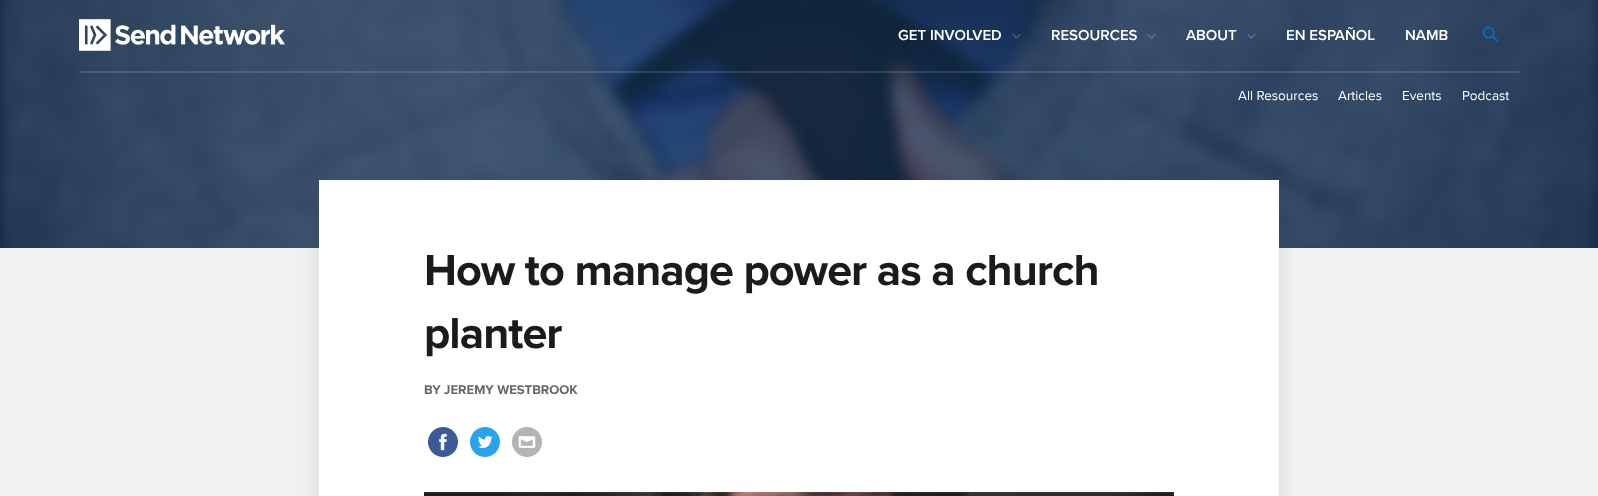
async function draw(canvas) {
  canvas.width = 1598
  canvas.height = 496
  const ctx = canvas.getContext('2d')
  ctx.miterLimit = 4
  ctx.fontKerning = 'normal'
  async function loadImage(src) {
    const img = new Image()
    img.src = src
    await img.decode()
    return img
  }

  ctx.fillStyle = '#f1f1f1'
  ctx.fillRect(0, 0, 1598, 496)
  ctx.fillStyle = '#0c2848'
  ctx.fillRect(0, 0, 1598, 248)
  ctx.drawImage(await loadImage('image5.png'), 0, 0, 1598, 248)
  ctx.drawImage(await loadImage('image0.png'), 79, 19, 206, 32)
  ctx.font = '600 15px Proxima Nova'
  ctx.fillStyle = '#fff'
  ctx.fillText('GET INVOLVED', 898, 40)
  ctx.drawImage(await loadImage('image1.png'), 1012, 34, 9, 5)
  ctx.fillText('RESOURCES', 1051, 40)
  ctx.drawImage(await loadImage('image2.png'), 1147, 34, 9, 5)
  ctx.fillText('ABOUT', 1186, 40)
  ctx.drawImage(await loadImage('image3.png'), 1247, 34, 9, 5)
  ctx.fillText('EN ESPAÑOL', 1286, 40)
  ctx.fillText('NAMB', 1405, 40)
  ctx.drawImage(await loadImage('image4.png'), 1482, 26, 17, 17)
  ctx.fillStyle = '#ffffff1f'
  ctx.fillRect(79, 71, 1440, 2)
  ctx.font = '13.5px Proxima Nova'
  ctx.fillStyle = '#fff'
  ctx.fillText('All Resources', 1238, 100)
  ctx.fillText('Articles', 1338, 100)
  ctx.fillText('Events', 1402, 100)
  ctx.fillText('Podcast', 1462, 100)
  ctx.fillStyle = '#0000001a'
  ctx.filter = 'blur(10px)'
  ctx.beginPath()
  ctx.rect(319, 183, 960, 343)
  ctx.fill()
  ctx.filter = 'none'
  ctx.fillStyle = '#fff'
  ctx.fillRect(319, 180, 960, 316)
  ctx.letterSpacing = '-1px'
  ctx.font = 'bold 45px Proxima Nova'
  ctx.fillStyle = '#191b1d'
  ctx.fillText('How to manage power as a church', 424, 285)
  ctx.fillText('planter', 424, 348)
  ctx.letterSpacing = '0px'
  ctx.font = 'bold 13.1px Proxima Nova'
  ctx.fillStyle = '#666'
  ctx.fillText('BY JEREMY WESTBROOK', 424, 394)
  ctx.drawImage(await loadImage('image6.png'), 428, 427, 30, 30)
  ctx.drawImage(await loadImage('image7.png'), 470, 427, 30, 30)
  ctx.drawImage(await loadImage('image8.png'), 512, 427, 30, 30)
  ctx.drawImage(await loadImage('image9.png'), 424, 492, 750, 4)
}

draw(document.querySelector('canvas'))
